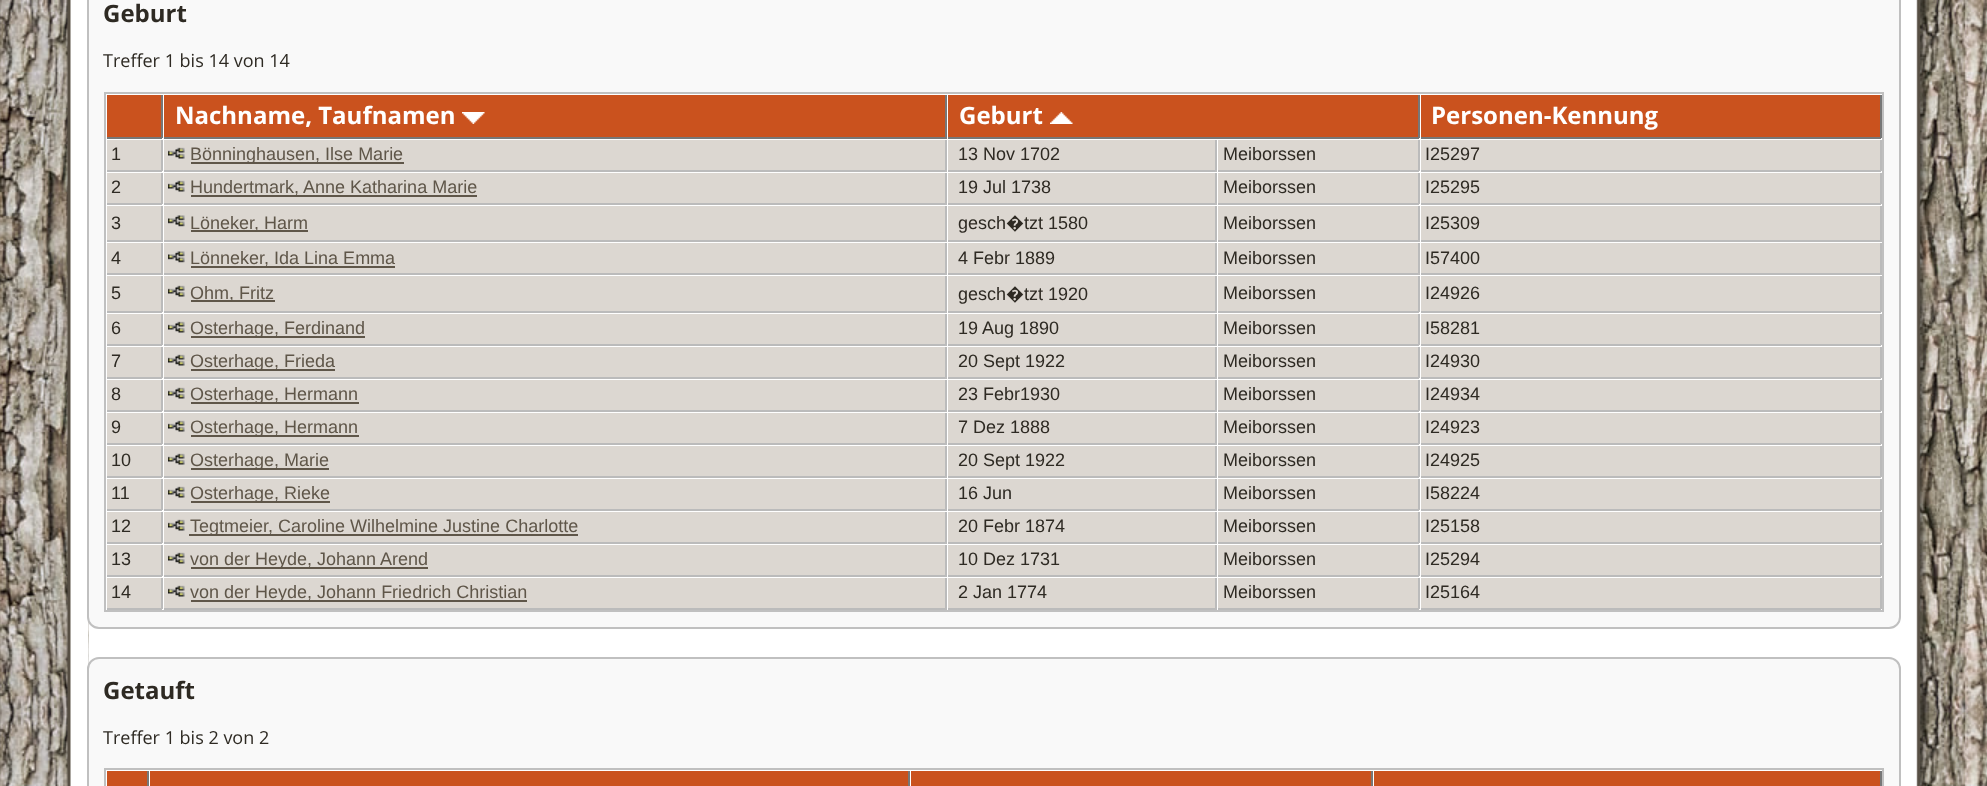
async function draw(canvas) {
  canvas.width = 1987
  canvas.height = 786
  const ctx = canvas.getContext('2d')
  ctx.miterLimit = 4
  ctx.fontKerning = 'normal'
  async function loadImage(src) {
    const img = new Image()
    img.src = src
    await img.decode()
    return img
  }

  ctx.fillStyle = '#fff'
  ctx.fillRect(0, 0, 1987, 786)
  ctx.drawImage(await loadImage('image0.png'), 0, 0, 1987, 786)
  ctx.drawImage(await loadImage('image1.png'), 66, 0, 23, 786)
  ctx.drawImage(await loadImage('image6.png'), 1899, 0, 27, 786)
  ctx.fillRect(89, 623, 1810, 40)
  ctx.fillStyle = '#f9f9f9'
  ctx.beginPath()
  ctx.roundRect(88, -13, 1812, 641, 11)
  ctx.fill()
  ctx.strokeStyle = '#c0c0c0'
  ctx.lineWidth = 2
  ctx.stroke()
  ctx.font = 'bold 24px Open Sans'
  ctx.fillStyle = '#2e2a23'
  ctx.fillText('Geburt', 103, 22)
  ctx.font = '18px Open Sans'
  ctx.fillText('Treffer 1 bis 14 von 14', 103, 67)
  ctx.fillStyle = '#fff'
  ctx.beginPath()
  ctx.rect(105, 93, 1778, 518)
  ctx.fill()
  ctx.stroke()
  ctx.fillStyle = '#ca521e'
  ctx.fillRect(107, 95, 54, 42)
  ctx.fillStyle = '#777'
  ctx.fillRect(161, 95, 2, 43)
  ctx.fillRect(107, 137, 55, 2)
  ctx.fillStyle = '#ca521e'
  ctx.fillRect(164, 95, 781, 42)
  ctx.fillStyle = '#777'
  ctx.fillRect(945, 95, 2, 43)
  ctx.fillRect(164, 137, 783, 2)
  ctx.font = 'bold 24px Open Sans'
  ctx.fillStyle = '#fff'
  ctx.fillText('Nachname, Taufnamen', 175, 124)
  ctx.drawImage(await loadImage('image2.png'), 462, 112, 23, 12)
  ctx.fillStyle = '#ca521e'
  ctx.fillRect(948, 95, 470, 42)
  ctx.fillStyle = '#777'
  ctx.fillRect(1418, 95, 2, 43)
  ctx.fillRect(948, 137, 471, 2)
  ctx.fillStyle = '#fff'
  ctx.fillText('Geburt', 959, 124)
  ctx.drawImage(await loadImage('image3.png'), 1050, 112, 23, 12)
  ctx.fillStyle = '#ca521e'
  ctx.fillRect(1421, 95, 459, 42)
  ctx.fillStyle = '#777'
  ctx.fillRect(1880, 95, 2, 43)
  ctx.fillRect(1421, 137, 460, 2)
  ctx.fillStyle = '#fff'
  ctx.fillText('Personen-Kennung', 1431, 124)
  ctx.fillStyle = '#dcd7d1'
  ctx.fillRect(107, 140, 54, 30)
  ctx.fillStyle = '#bbb'
  ctx.fillRect(161, 140, 2, 31)
  ctx.fillRect(107, 170, 55, 2)
  ctx.font = '18px Liberation Sans'
  ctx.fillStyle = '#2e2a23'
  ctx.fillText('1', 111, 160)
  ctx.fillStyle = '#dcd7d1'
  ctx.fillRect(164, 140, 781, 30)
  ctx.fillStyle = '#bbb'
  ctx.fillRect(945, 140, 2, 31)
  ctx.fillRect(164, 170, 783, 2)
  ctx.drawImage(await loadImage('image4.png'), 168, 147, 17, 12)
  ctx.fillStyle = '#5f5649'
  ctx.fillRect(191, 162, 213, 2)
  ctx.fillText('Bönninghausen, Ilse Marie', 190, 160)
  ctx.fillStyle = '#dcd7d1'
  ctx.fillRect(948, 140, 267, 30)
  ctx.fillStyle = '#bbb'
  ctx.fillRect(1215, 140, 2, 31)
  ctx.fillRect(948, 170, 269, 2)
  ctx.fillStyle = '#2e2a23'
  ctx.fillText('13 Nov 1702', 958, 160)
  ctx.fillStyle = '#dcd7d1'
  ctx.fillRect(1218, 140, 200, 30)
  ctx.fillStyle = '#bbb'
  ctx.fillRect(1418, 140, 2, 31)
  ctx.fillRect(1218, 170, 201, 2)
  ctx.fillStyle = '#2e2a23'
  ctx.fillText('Meiborssen', 1223, 160)
  ctx.fillStyle = '#dcd7d1'
  ctx.fillRect(1421, 140, 459, 30)
  ctx.fillStyle = '#bbb'
  ctx.fillRect(1880, 140, 2, 31)
  ctx.fillRect(1421, 170, 460, 2)
  ctx.fillStyle = '#2e2a23'
  ctx.fillText('I25297', 1425, 160)
  ctx.fillStyle = '#dcd7d1'
  ctx.fillRect(107, 173, 54, 30)
  ctx.fillStyle = '#bbb'
  ctx.fillRect(161, 173, 2, 31)
  ctx.fillRect(107, 203, 55, 2)
  ctx.fillStyle = '#2e2a23'
  ctx.fillText('2', 111, 193)
  ctx.fillStyle = '#dcd7d1'
  ctx.fillRect(164, 173, 781, 30)
  ctx.fillStyle = '#bbb'
  ctx.fillRect(945, 173, 2, 31)
  ctx.fillRect(164, 203, 783, 2)
  ctx.drawImage(await loadImage('image4.png'), 168, 180, 17, 12)
  ctx.fillStyle = '#5f5649'
  ctx.fillRect(191, 195, 286, 2)
  ctx.fillText('Hundertmark, Anne Katharina Marie', 190, 193)
  ctx.fillStyle = '#dcd7d1'
  ctx.fillRect(948, 173, 267, 30)
  ctx.fillStyle = '#bbb'
  ctx.fillRect(1215, 173, 2, 31)
  ctx.fillRect(948, 203, 269, 2)
  ctx.fillStyle = '#2e2a23'
  ctx.fillText('19 Jul 1738', 958, 193)
  ctx.fillStyle = '#dcd7d1'
  ctx.fillRect(1218, 173, 200, 30)
  ctx.fillStyle = '#bbb'
  ctx.fillRect(1418, 173, 2, 31)
  ctx.fillRect(1218, 203, 201, 2)
  ctx.fillStyle = '#2e2a23'
  ctx.fillText('Meiborssen', 1223, 193)
  ctx.fillStyle = '#dcd7d1'
  ctx.fillRect(1421, 173, 459, 30)
  ctx.fillStyle = '#bbb'
  ctx.fillRect(1880, 173, 2, 31)
  ctx.fillRect(1421, 203, 460, 2)
  ctx.fillStyle = '#2e2a23'
  ctx.fillText('I25295', 1425, 193)
  ctx.fillStyle = '#dcd7d1'
  ctx.fillRect(107, 206, 54, 34)
  ctx.fillStyle = '#bbb'
  ctx.fillRect(161, 206, 2, 36)
  ctx.fillRect(107, 240, 55, 2)
  ctx.fillStyle = '#2e2a23'
  ctx.fillText('3', 111, 229)
  ctx.fillStyle = '#dcd7d1'
  ctx.fillRect(164, 206, 781, 34)
  ctx.fillStyle = '#bbb'
  ctx.fillRect(945, 206, 2, 36)
  ctx.fillRect(164, 240, 783, 2)
  ctx.drawImage(await loadImage('image5.png'), 168, 215, 17, 12)
  ctx.fillStyle = '#5f5649'
  ctx.fillRect(191, 230, 117, 2)
  ctx.fillText('Löneker, Harm', 190, 229)
  ctx.fillStyle = '#dcd7d1'
  ctx.fillRect(948, 206, 267, 34)
  ctx.fillStyle = '#bbb'
  ctx.fillRect(1215, 206, 2, 36)
  ctx.fillRect(948, 240, 269, 2)
  ctx.fillStyle = '#2e2a23'
  ctx.fillText('gesch', 958, 229)
  ctx.font = '18px Noto Sans'
  ctx.fillText('�', 1006, 229)
  ctx.font = '18px Liberation Sans'
  ctx.fillText('tzt 1580', 1024, 229)
  ctx.fillStyle = '#dcd7d1'
  ctx.fillRect(1218, 206, 200, 34)
  ctx.fillStyle = '#bbb'
  ctx.fillRect(1418, 206, 2, 36)
  ctx.fillRect(1218, 240, 201, 2)
  ctx.fillStyle = '#2e2a23'
  ctx.fillText('Meiborssen', 1223, 229)
  ctx.fillStyle = '#dcd7d1'
  ctx.fillRect(1421, 206, 459, 34)
  ctx.fillStyle = '#bbb'
  ctx.fillRect(1880, 206, 2, 36)
  ctx.fillRect(1421, 240, 460, 2)
  ctx.fillStyle = '#2e2a23'
  ctx.fillText('I25309', 1425, 229)
  ctx.fillStyle = '#dcd7d1'
  ctx.fillRect(107, 243, 54, 30)
  ctx.fillStyle = '#bbb'
  ctx.fillRect(161, 243, 2, 32)
  ctx.fillRect(107, 273, 55, 2)
  ctx.fillStyle = '#2e2a23'
  ctx.fillText('4', 111, 264)
  ctx.fillStyle = '#dcd7d1'
  ctx.fillRect(164, 243, 781, 30)
  ctx.fillStyle = '#bbb'
  ctx.fillRect(945, 243, 2, 32)
  ctx.fillRect(164, 273, 783, 2)
  ctx.drawImage(await loadImage('image5.png'), 168, 251, 17, 12)
  ctx.fillStyle = '#5f5649'
  ctx.fillRect(191, 266, 204, 2)
  ctx.fillText('Lönneker, Ida Lina Emma', 190, 264)
  ctx.fillStyle = '#dcd7d1'
  ctx.fillRect(948, 243, 267, 30)
  ctx.fillStyle = '#bbb'
  ctx.fillRect(1215, 243, 2, 32)
  ctx.fillRect(948, 273, 269, 2)
  ctx.fillStyle = '#2e2a23'
  ctx.fillText('4 Febr 1889', 958, 264)
  ctx.fillStyle = '#dcd7d1'
  ctx.fillRect(1218, 243, 200, 30)
  ctx.fillStyle = '#bbb'
  ctx.fillRect(1418, 243, 2, 32)
  ctx.fillRect(1218, 273, 201, 2)
  ctx.fillStyle = '#2e2a23'
  ctx.fillText('Meiborssen', 1223, 264)
  ctx.fillStyle = '#dcd7d1'
  ctx.fillRect(1421, 243, 459, 30)
  ctx.fillStyle = '#bbb'
  ctx.fillRect(1880, 243, 2, 32)
  ctx.fillRect(1421, 273, 460, 2)
  ctx.fillStyle = '#2e2a23'
  ctx.fillText('I57400', 1425, 264)
  ctx.fillStyle = '#dcd7d1'
  ctx.fillRect(107, 276, 54, 35)
  ctx.fillStyle = '#bbb'
  ctx.fillRect(161, 276, 2, 36)
  ctx.fillRect(107, 311, 55, 2)
  ctx.fillStyle = '#2e2a23'
  ctx.fillText('5', 111, 299)
  ctx.fillStyle = '#dcd7d1'
  ctx.fillRect(164, 276, 781, 35)
  ctx.fillStyle = '#bbb'
  ctx.fillRect(945, 276, 2, 36)
  ctx.fillRect(164, 311, 783, 2)
  ctx.drawImage(await loadImage('image4.png'), 168, 285, 17, 12)
  ctx.fillStyle = '#5f5649'
  ctx.fillRect(191, 300, 84, 2)
  ctx.fillText('Ohm, Fritz', 190, 299)
  ctx.fillStyle = '#dcd7d1'
  ctx.fillRect(948, 276, 267, 35)
  ctx.fillStyle = '#bbb'
  ctx.fillRect(1215, 276, 2, 36)
  ctx.fillRect(948, 311, 269, 2)
  ctx.fillStyle = '#2e2a23'
  ctx.fillText('gesch', 958, 300)
  ctx.font = '18px Noto Sans'
  ctx.fillText('�', 1006, 300)
  ctx.font = '18px Liberation Sans'
  ctx.fillText('tzt 1920', 1024, 300)
  ctx.fillStyle = '#dcd7d1'
  ctx.fillRect(1218, 276, 200, 35)
  ctx.fillStyle = '#bbb'
  ctx.fillRect(1418, 276, 2, 36)
  ctx.fillRect(1218, 311, 201, 2)
  ctx.fillStyle = '#2e2a23'
  ctx.fillText('Meiborssen', 1223, 299)
  ctx.fillStyle = '#dcd7d1'
  ctx.fillRect(1421, 276, 459, 35)
  ctx.fillStyle = '#bbb'
  ctx.fillRect(1880, 276, 2, 36)
  ctx.fillRect(1421, 311, 460, 2)
  ctx.fillStyle = '#2e2a23'
  ctx.fillText('I24926', 1425, 299)
  ctx.fillStyle = '#dcd7d1'
  ctx.fillRect(107, 314, 54, 30)
  ctx.fillStyle = '#bbb'
  ctx.fillRect(161, 314, 2, 31)
  ctx.fillRect(107, 344, 55, 2)
  ctx.fillStyle = '#2e2a23'
  ctx.fillText('6', 111, 334)
  ctx.fillStyle = '#dcd7d1'
  ctx.fillRect(164, 314, 781, 30)
  ctx.fillStyle = '#bbb'
  ctx.fillRect(945, 314, 2, 31)
  ctx.fillRect(164, 344, 783, 2)
  ctx.drawImage(await loadImage('image4.png'), 168, 321, 17, 12)
  ctx.fillStyle = '#5f5649'
  ctx.fillRect(191, 336, 174, 2)
  ctx.fillText('Osterhage, Ferdinand', 190, 334)
  ctx.fillStyle = '#dcd7d1'
  ctx.fillRect(948, 314, 267, 30)
  ctx.fillStyle = '#bbb'
  ctx.fillRect(1215, 314, 2, 31)
  ctx.fillRect(948, 344, 269, 2)
  ctx.fillStyle = '#2e2a23'
  ctx.fillText('19 Aug 1890', 958, 334)
  ctx.fillStyle = '#dcd7d1'
  ctx.fillRect(1218, 314, 200, 30)
  ctx.fillStyle = '#bbb'
  ctx.fillRect(1418, 314, 2, 31)
  ctx.fillRect(1218, 344, 201, 2)
  ctx.fillStyle = '#2e2a23'
  ctx.fillText('Meiborssen', 1223, 334)
  ctx.fillStyle = '#dcd7d1'
  ctx.fillRect(1421, 314, 459, 30)
  ctx.fillStyle = '#bbb'
  ctx.fillRect(1880, 314, 2, 31)
  ctx.fillRect(1421, 344, 460, 2)
  ctx.fillStyle = '#2e2a23'
  ctx.fillText('I58281', 1425, 334)
  ctx.fillStyle = '#dcd7d1'
  ctx.fillRect(107, 347, 54, 30)
  ctx.fillStyle = '#bbb'
  ctx.fillRect(161, 347, 2, 31)
  ctx.fillRect(107, 377, 55, 2)
  ctx.fillStyle = '#2e2a23'
  ctx.fillText('7', 111, 367)
  ctx.fillStyle = '#dcd7d1'
  ctx.fillRect(164, 347, 781, 30)
  ctx.fillStyle = '#bbb'
  ctx.fillRect(945, 347, 2, 31)
  ctx.fillRect(164, 377, 783, 2)
  ctx.drawImage(await loadImage('image4.png'), 168, 354, 17, 12)
  ctx.fillStyle = '#5f5649'
  ctx.fillRect(191, 369, 144, 2)
  ctx.fillText('Osterhage, Frieda', 190, 367)
  ctx.fillStyle = '#dcd7d1'
  ctx.fillRect(948, 347, 267, 30)
  ctx.fillStyle = '#bbb'
  ctx.fillRect(1215, 347, 2, 31)
  ctx.fillRect(948, 377, 269, 2)
  ctx.fillStyle = '#2e2a23'
  ctx.fillText('20 Sept 1922', 958, 367)
  ctx.fillStyle = '#dcd7d1'
  ctx.fillRect(1218, 347, 200, 30)
  ctx.fillStyle = '#bbb'
  ctx.fillRect(1418, 347, 2, 31)
  ctx.fillRect(1218, 377, 201, 2)
  ctx.fillStyle = '#2e2a23'
  ctx.fillText('Meiborssen', 1223, 367)
  ctx.fillStyle = '#dcd7d1'
  ctx.fillRect(1421, 347, 459, 30)
  ctx.fillStyle = '#bbb'
  ctx.fillRect(1880, 347, 2, 31)
  ctx.fillRect(1421, 377, 460, 2)
  ctx.fillStyle = '#2e2a23'
  ctx.fillText('I24930', 1425, 367)
  ctx.fillStyle = '#dcd7d1'
  ctx.fillRect(107, 380, 54, 30)
  ctx.fillStyle = '#bbb'
  ctx.fillRect(161, 380, 2, 31)
  ctx.fillRect(107, 410, 55, 2)
  ctx.fillStyle = '#2e2a23'
  ctx.fillText('8', 111, 400)
  ctx.fillStyle = '#dcd7d1'
  ctx.fillRect(164, 380, 781, 30)
  ctx.fillStyle = '#bbb'
  ctx.fillRect(945, 380, 2, 31)
  ctx.fillRect(164, 410, 783, 2)
  ctx.drawImage(await loadImage('image4.png'), 168, 387, 17, 12)
  ctx.fillStyle = '#5f5649'
  ctx.fillRect(191, 402, 168, 2)
  ctx.fillText('Osterhage, Hermann', 190, 400)
  ctx.fillStyle = '#dcd7d1'
  ctx.fillRect(948, 380, 267, 30)
  ctx.fillStyle = '#bbb'
  ctx.fillRect(1215, 380, 2, 31)
  ctx.fillRect(948, 410, 269, 2)
  ctx.fillStyle = '#2e2a23'
  ctx.fillText('23 Febr1930', 958, 400)
  ctx.fillStyle = '#dcd7d1'
  ctx.fillRect(1218, 380, 200, 30)
  ctx.fillStyle = '#bbb'
  ctx.fillRect(1418, 380, 2, 31)
  ctx.fillRect(1218, 410, 201, 2)
  ctx.fillStyle = '#2e2a23'
  ctx.fillText('Meiborssen', 1223, 400)
  ctx.fillStyle = '#dcd7d1'
  ctx.fillRect(1421, 380, 459, 30)
  ctx.fillStyle = '#bbb'
  ctx.fillRect(1880, 380, 2, 31)
  ctx.fillRect(1421, 410, 460, 2)
  ctx.fillStyle = '#2e2a23'
  ctx.fillText('I24934', 1425, 400)
  ctx.fillStyle = '#dcd7d1'
  ctx.fillRect(107, 413, 54, 30)
  ctx.fillStyle = '#bbb'
  ctx.fillRect(161, 413, 2, 31)
  ctx.fillRect(107, 443, 55, 2)
  ctx.fillStyle = '#2e2a23'
  ctx.fillText('9', 111, 433)
  ctx.fillStyle = '#dcd7d1'
  ctx.fillRect(164, 413, 781, 30)
  ctx.fillStyle = '#bbb'
  ctx.fillRect(945, 413, 2, 31)
  ctx.fillRect(164, 443, 783, 2)
  ctx.drawImage(await loadImage('image4.png'), 168, 420, 17, 12)
  ctx.fillStyle = '#5f5649'
  ctx.fillRect(191, 435, 168, 2)
  ctx.fillText('Osterhage, Hermann', 190, 433)
  ctx.fillStyle = '#dcd7d1'
  ctx.fillRect(948, 413, 267, 30)
  ctx.fillStyle = '#bbb'
  ctx.fillRect(1215, 413, 2, 31)
  ctx.fillRect(948, 443, 269, 2)
  ctx.fillStyle = '#2e2a23'
  ctx.fillText('7 Dez 1888', 958, 433)
  ctx.fillStyle = '#dcd7d1'
  ctx.fillRect(1218, 413, 200, 30)
  ctx.fillStyle = '#bbb'
  ctx.fillRect(1418, 413, 2, 31)
  ctx.fillRect(1218, 443, 201, 2)
  ctx.fillStyle = '#2e2a23'
  ctx.fillText('Meiborssen', 1223, 433)
  ctx.fillStyle = '#dcd7d1'
  ctx.fillRect(1421, 413, 459, 30)
  ctx.fillStyle = '#bbb'
  ctx.fillRect(1880, 413, 2, 31)
  ctx.fillRect(1421, 443, 460, 2)
  ctx.fillStyle = '#2e2a23'
  ctx.fillText('I24923', 1425, 433)
  ctx.fillStyle = '#dcd7d1'
  ctx.fillRect(107, 446, 54, 30)
  ctx.fillStyle = '#bbb'
  ctx.fillRect(161, 446, 2, 31)
  ctx.fillRect(107, 476, 55, 2)
  ctx.fillStyle = '#2e2a23'
  ctx.fillText('10', 111, 466)
  ctx.fillStyle = '#dcd7d1'
  ctx.fillRect(164, 446, 781, 30)
  ctx.fillStyle = '#bbb'
  ctx.fillRect(945, 446, 2, 31)
  ctx.fillRect(164, 476, 783, 2)
  ctx.drawImage(await loadImage('image4.png'), 168, 453, 17, 12)
  ctx.fillStyle = '#5f5649'
  ctx.fillRect(191, 468, 138, 2)
  ctx.fillText('Osterhage, Marie', 190, 466)
  ctx.fillStyle = '#dcd7d1'
  ctx.fillRect(948, 446, 267, 30)
  ctx.fillStyle = '#bbb'
  ctx.fillRect(1215, 446, 2, 31)
  ctx.fillRect(948, 476, 269, 2)
  ctx.fillStyle = '#2e2a23'
  ctx.fillText('20 Sept 1922', 958, 466)
  ctx.fillStyle = '#dcd7d1'
  ctx.fillRect(1218, 446, 200, 30)
  ctx.fillStyle = '#bbb'
  ctx.fillRect(1418, 446, 2, 31)
  ctx.fillRect(1218, 476, 201, 2)
  ctx.fillStyle = '#2e2a23'
  ctx.fillText('Meiborssen', 1223, 466)
  ctx.fillStyle = '#dcd7d1'
  ctx.fillRect(1421, 446, 459, 30)
  ctx.fillStyle = '#bbb'
  ctx.fillRect(1880, 446, 2, 31)
  ctx.fillRect(1421, 476, 460, 2)
  ctx.fillStyle = '#2e2a23'
  ctx.fillText('I24925', 1425, 466)
  ctx.fillStyle = '#dcd7d1'
  ctx.fillRect(107, 479, 54, 30)
  ctx.fillStyle = '#bbb'
  ctx.fillRect(161, 479, 2, 31)
  ctx.fillRect(107, 509, 55, 2)
  ctx.fillStyle = '#2e2a23'
  ctx.fillText('11', 111, 499)
  ctx.fillStyle = '#dcd7d1'
  ctx.fillRect(164, 479, 781, 30)
  ctx.fillStyle = '#bbb'
  ctx.fillRect(945, 479, 2, 31)
  ctx.fillRect(164, 509, 783, 2)
  ctx.drawImage(await loadImage('image4.png'), 168, 486, 17, 12)
  ctx.fillStyle = '#5f5649'
  ctx.fillRect(191, 501, 139, 2)
  ctx.fillText('Osterhage, Rieke', 190, 499)
  ctx.fillStyle = '#dcd7d1'
  ctx.fillRect(948, 479, 267, 30)
  ctx.fillStyle = '#bbb'
  ctx.fillRect(1215, 479, 2, 31)
  ctx.fillRect(948, 509, 269, 2)
  ctx.fillStyle = '#2e2a23'
  ctx.fillText('16 Jun', 958, 499)
  ctx.fillStyle = '#dcd7d1'
  ctx.fillRect(1218, 479, 200, 30)
  ctx.fillStyle = '#bbb'
  ctx.fillRect(1418, 479, 2, 31)
  ctx.fillRect(1218, 509, 201, 2)
  ctx.fillStyle = '#2e2a23'
  ctx.fillText('Meiborssen', 1223, 499)
  ctx.fillStyle = '#dcd7d1'
  ctx.fillRect(1421, 479, 459, 30)
  ctx.fillStyle = '#bbb'
  ctx.fillRect(1880, 479, 2, 31)
  ctx.fillRect(1421, 509, 460, 2)
  ctx.fillStyle = '#2e2a23'
  ctx.fillText('I58224', 1425, 499)
  ctx.fillStyle = '#dcd7d1'
  ctx.fillRect(107, 512, 54, 30)
  ctx.fillStyle = '#bbb'
  ctx.fillRect(161, 512, 2, 31)
  ctx.fillRect(107, 542, 55, 2)
  ctx.fillStyle = '#2e2a23'
  ctx.fillText('12', 111, 532)
  ctx.fillStyle = '#dcd7d1'
  ctx.fillRect(164, 512, 781, 30)
  ctx.fillStyle = '#bbb'
  ctx.fillRect(945, 512, 2, 31)
  ctx.fillRect(164, 542, 783, 2)
  ctx.drawImage(await loadImage('image4.png'), 168, 519, 17, 12)
  ctx.fillStyle = '#5f5649'
  ctx.fillRect(189, 534, 389, 2)
  ctx.fillText('Tegtmeier, Caroline Wilhelmine Justine Charlotte', 190, 532)
  ctx.fillStyle = '#dcd7d1'
  ctx.fillRect(948, 512, 267, 30)
  ctx.fillStyle = '#bbb'
  ctx.fillRect(1215, 512, 2, 31)
  ctx.fillRect(948, 542, 269, 2)
  ctx.fillStyle = '#2e2a23'
  ctx.fillText('20 Febr 1874', 958, 532)
  ctx.fillStyle = '#dcd7d1'
  ctx.fillRect(1218, 512, 200, 30)
  ctx.fillStyle = '#bbb'
  ctx.fillRect(1418, 512, 2, 31)
  ctx.fillRect(1218, 542, 201, 2)
  ctx.fillStyle = '#2e2a23'
  ctx.fillText('Meiborssen', 1223, 532)
  ctx.fillStyle = '#dcd7d1'
  ctx.fillRect(1421, 512, 459, 30)
  ctx.fillStyle = '#bbb'
  ctx.fillRect(1880, 512, 2, 31)
  ctx.fillRect(1421, 542, 460, 2)
  ctx.fillStyle = '#2e2a23'
  ctx.fillText('I25158', 1425, 532)
  ctx.fillStyle = '#dcd7d1'
  ctx.fillRect(107, 545, 54, 30)
  ctx.fillStyle = '#bbb'
  ctx.fillRect(161, 545, 2, 31)
  ctx.fillRect(107, 575, 55, 2)
  ctx.fillStyle = '#2e2a23'
  ctx.fillText('13', 111, 565)
  ctx.fillStyle = '#dcd7d1'
  ctx.fillRect(164, 545, 781, 30)
  ctx.fillStyle = '#bbb'
  ctx.fillRect(945, 545, 2, 31)
  ctx.fillRect(164, 575, 783, 2)
  ctx.drawImage(await loadImage('image4.png'), 168, 552, 17, 12)
  ctx.fillStyle = '#5f5649'
  ctx.fillRect(191, 567, 237, 2)
  ctx.fillText('von der Heyde, Johann', 190, 565)
  ctx.fillText('Arend', 380, 565)
  ctx.fillStyle = '#dcd7d1'
  ctx.fillRect(948, 545, 267, 30)
  ctx.fillStyle = '#bbb'
  ctx.fillRect(1215, 545, 2, 31)
  ctx.fillRect(948, 575, 269, 2)
  ctx.fillStyle = '#2e2a23'
  ctx.fillText('10 Dez 1731', 958, 565)
  ctx.fillStyle = '#dcd7d1'
  ctx.fillRect(1218, 545, 200, 30)
  ctx.fillStyle = '#bbb'
  ctx.fillRect(1418, 545, 2, 31)
  ctx.fillRect(1218, 575, 201, 2)
  ctx.fillStyle = '#2e2a23'
  ctx.fillText('Meiborssen', 1223, 565)
  ctx.fillStyle = '#dcd7d1'
  ctx.fillRect(1421, 545, 459, 30)
  ctx.fillStyle = '#bbb'
  ctx.fillRect(1880, 545, 2, 31)
  ctx.fillRect(1421, 575, 460, 2)
  ctx.fillStyle = '#2e2a23'
  ctx.fillText('I25294', 1425, 565)
  ctx.fillStyle = '#dcd7d1'
  ctx.fillRect(107, 578, 54, 30)
  ctx.fillStyle = '#bbb'
  ctx.fillRect(161, 578, 2, 31)
  ctx.fillRect(107, 608, 55, 2)
  ctx.fillStyle = '#2e2a23'
  ctx.fillText('14', 111, 598)
  ctx.fillStyle = '#dcd7d1'
  ctx.fillRect(164, 578, 781, 30)
  ctx.fillStyle = '#bbb'
  ctx.fillRect(945, 578, 2, 31)
  ctx.fillRect(164, 608, 783, 2)
  ctx.drawImage(await loadImage('image4.png'), 168, 585, 17, 12)
  ctx.fillStyle = '#5f5649'
  ctx.fillRect(191, 600, 336, 2)
  ctx.fillText('von der Heyde, Johann Friedrich Christian', 190, 598)
  ctx.fillStyle = '#dcd7d1'
  ctx.fillRect(948, 578, 267, 30)
  ctx.fillStyle = '#bbb'
  ctx.fillRect(1215, 578, 2, 31)
  ctx.fillRect(948, 608, 269, 2)
  ctx.fillStyle = '#2e2a23'
  ctx.fillText('2 Jan 1774', 958, 598)
  ctx.fillStyle = '#dcd7d1'
  ctx.fillRect(1218, 578, 200, 30)
  ctx.fillStyle = '#bbb'
  ctx.fillRect(1418, 578, 2, 31)
  ctx.fillRect(1218, 608, 201, 2)
  ctx.fillStyle = '#2e2a23'
  ctx.fillText('Meiborssen', 1223, 598)
  ctx.fillStyle = '#dcd7d1'
  ctx.fillRect(1421, 578, 459, 30)
  ctx.fillStyle = '#bbb'
  ctx.fillRect(1880, 578, 2, 31)
  ctx.fillRect(1421, 608, 460, 2)
  ctx.fillStyle = '#2e2a23'
  ctx.fillText('I25164', 1425, 598)
  ctx.fillStyle = '#f9f9f9'
  ctx.beginPath()
  ctx.roundRect(88, 658, 1812, 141, 11)
  ctx.fill()
  ctx.stroke()
  ctx.font = 'bold 24px Open Sans'
  ctx.fillStyle = '#2e2a23'
  ctx.fillText('Getauft', 103, 699)
  ctx.font = '18px Open Sans'
  ctx.fillText('Treffer 1 bis 2 von 2', 103, 744)
  ctx.fillStyle = '#fff'
  ctx.beginPath()
  ctx.rect(105, 769, 1778, 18)
  ctx.fill()
  ctx.stroke()
  ctx.fillStyle = '#ca521e'
  ctx.fillRect(107, 771, 40, 15)
  ctx.fillStyle = '#777'
  ctx.fillRect(147, 771, 2, 15)
  ctx.fillStyle = '#ca521e'
  ctx.fillRect(150, 771, 758, 15)
  ctx.fillStyle = '#777'
  ctx.fillRect(908, 771, 2, 15)
  ctx.fillStyle = '#ca521e'
  ctx.fillRect(911, 771, 460, 15)
  ctx.fillStyle = '#777'
  ctx.fillRect(1371, 771, 2, 15)
  ctx.fillStyle = '#ca521e'
  ctx.fillRect(1374, 771, 506, 15)
  ctx.fillStyle = '#777'
  ctx.fillRect(1880, 771, 2, 15)
}

draw(document.querySelector('canvas'))
